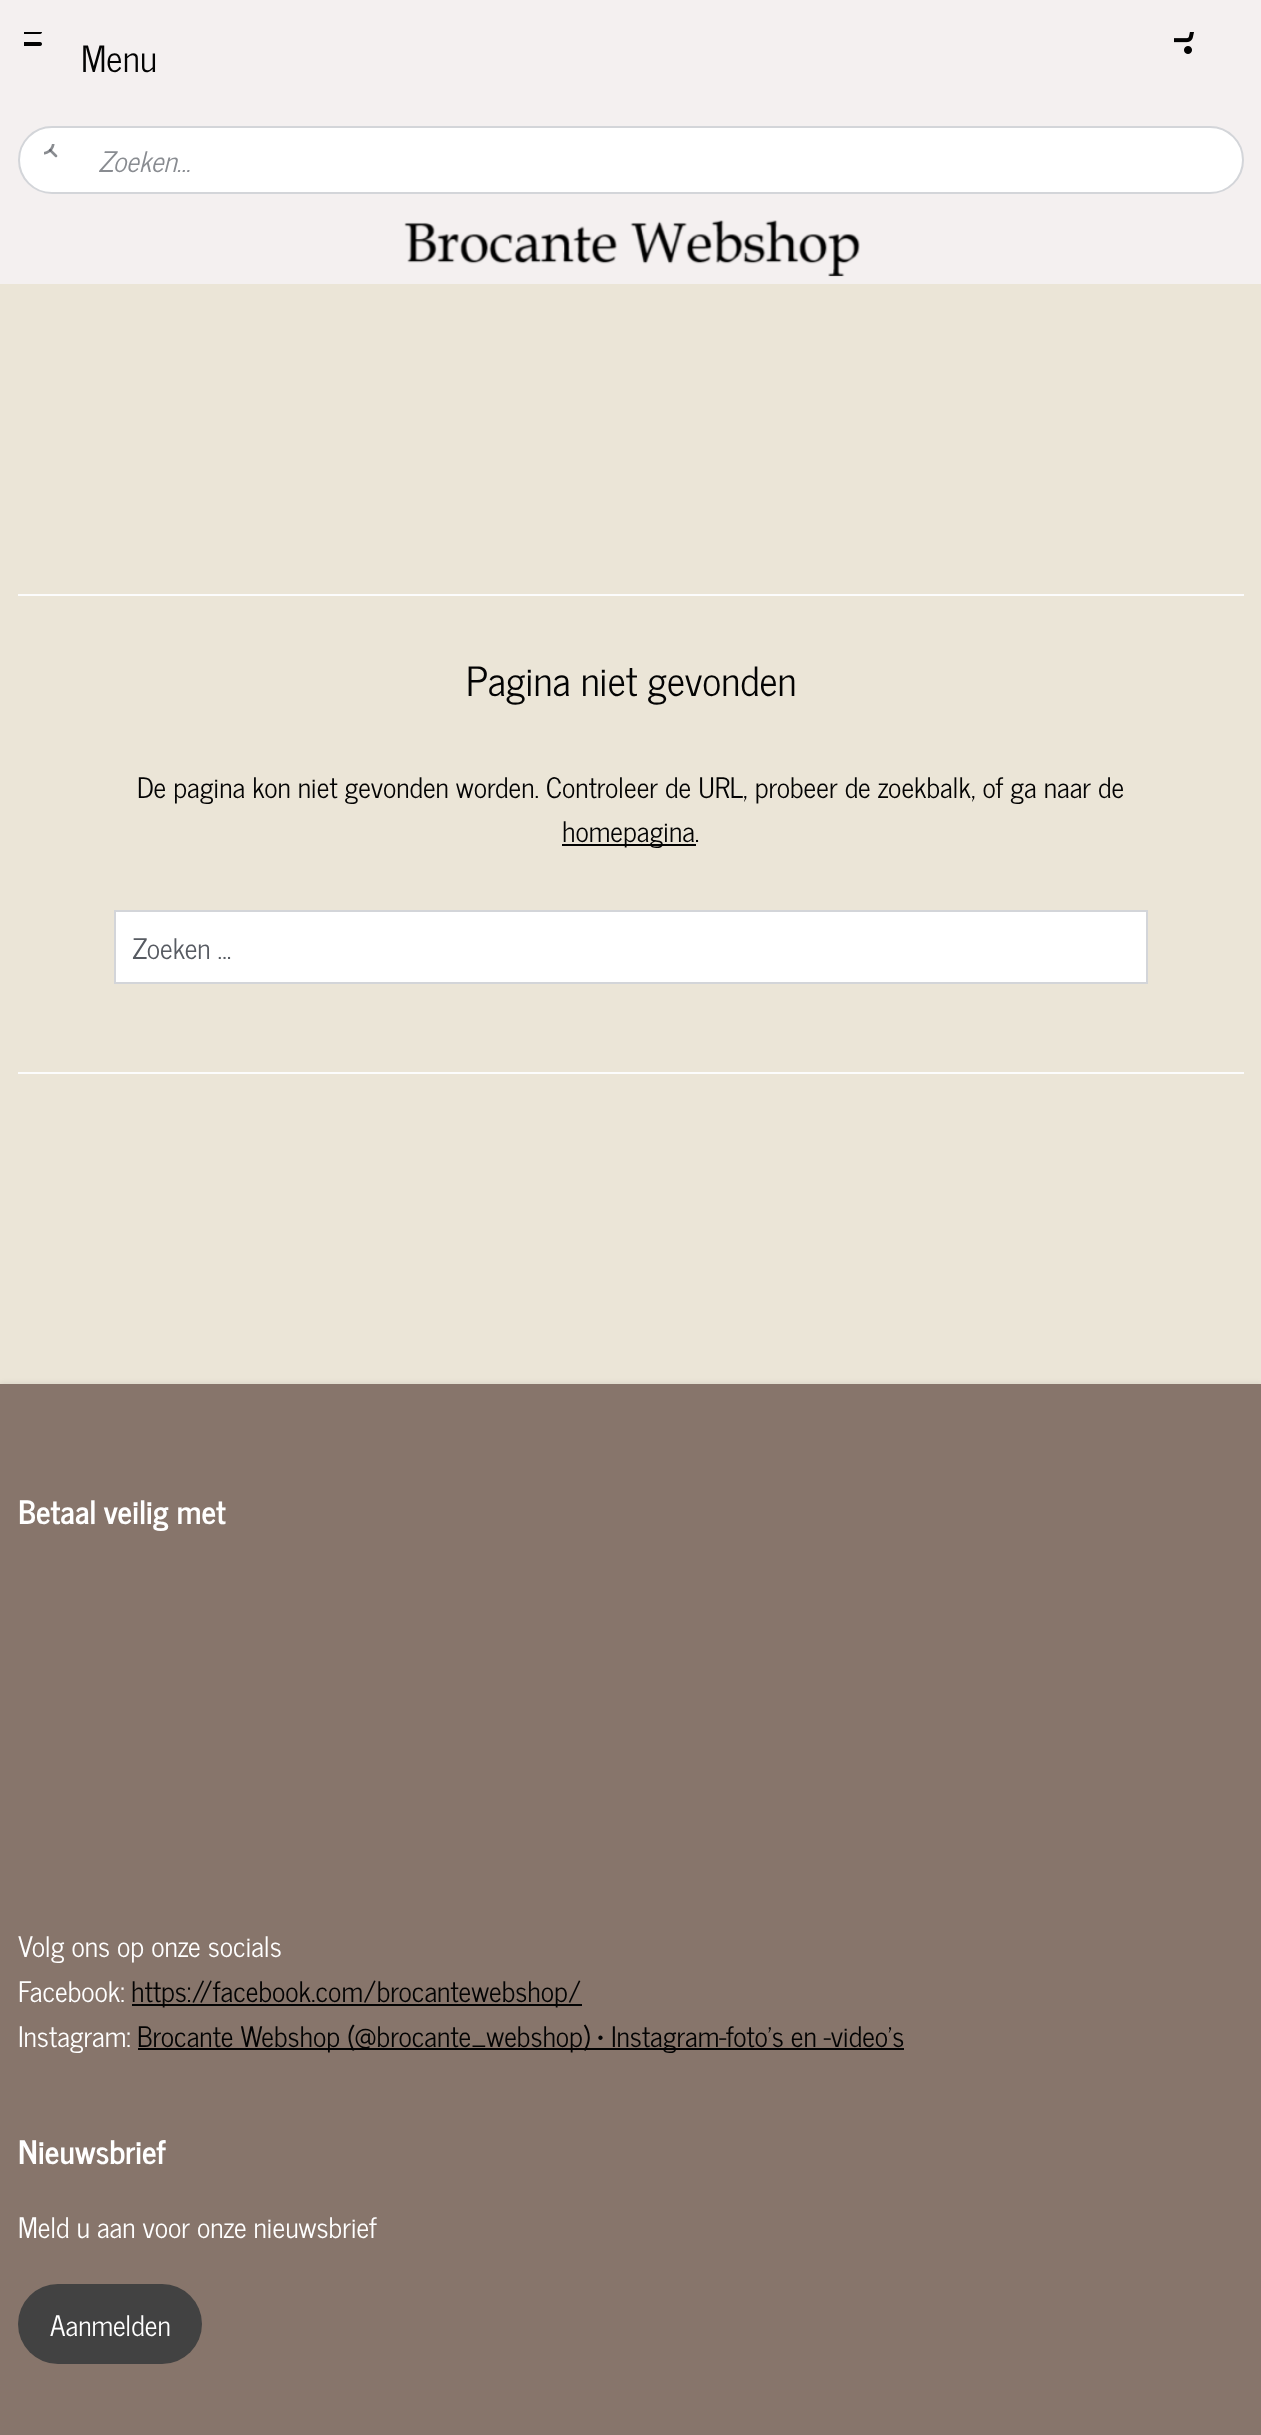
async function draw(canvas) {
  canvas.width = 1261
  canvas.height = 2435
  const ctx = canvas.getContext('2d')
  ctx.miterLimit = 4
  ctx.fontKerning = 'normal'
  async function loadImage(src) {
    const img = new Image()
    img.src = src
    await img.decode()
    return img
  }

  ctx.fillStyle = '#ebe5d7'
  ctx.fillRect(0, 0, 1261, 2435)
  ctx.fillStyle = '#f4f0f0'
  ctx.fillRect(0, 0, 1261, 284)
  ctx.drawImage(await loadImage('image0.png'), 24, 32, 18, 14)
  ctx.font = '36px News Cycle'
  ctx.fillStyle = '#030303'
  ctx.fillText('Menu', 81, 72)
  ctx.drawImage(await loadImage('image1.png'), 1174, 32, 20, 22)
  ctx.fillStyle = '#fff'
  ctx.beginPath()
  ctx.roundRect(19, 127, 1224, 66, 33)
  ctx.fill()
  ctx.strokeStyle = '#d3d5d9'
  ctx.lineWidth = 2
  ctx.stroke()
  ctx.drawImage(await loadImage('image2.png'), 44, 144, 14, 14)
  ctx.font = 'italic 28px News Cycle'
  ctx.fillStyle = '#898c91'
  ctx.fillText('Zoeken...', 98, 172)
  ctx.drawImage(await loadImage('image3.png'), 404, 220, 456, 57)
  ctx.fillStyle = '#fcfcfc'
  ctx.fillRect(18, 594, 1226, 2)
  ctx.fillRect(18, 1072, 1226, 2)
  ctx.font = '40px News Cycle'
  ctx.fillStyle = '#030303'
  ctx.fillText('Pagina niet gevonden', 466, 696)
  ctx.font = '28px News Cycle'
  ctx.fillText('De pagina kon niet gevonden worden. Controleer de URL, probeer de zoekbalk, of ga naar de', 137, 798)
  ctx.fillRect(562, 844, 134, 2)
  ctx.fillText('homepagina.', 562, 842)
  ctx.fillStyle = '#fff'
  ctx.beginPath()
  ctx.rect(115, 911, 1032, 72)
  ctx.fill()
  ctx.stroke()
  ctx.fillStyle = '#575b62'
  ctx.fillText('Zoeken ...', 132, 959)
  ctx.fillStyle = '#0000000d'
  ctx.filter = 'blur(2px)'
  ctx.beginPath()
  ctx.rect(0, 1382, 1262, 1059)
  ctx.fill()
  ctx.filter = 'none'
  ctx.fillStyle = '#87756b'
  ctx.fillRect(0, 1384, 1261, 1051)
  ctx.font = 'bold 32px News Cycle'
  ctx.fillStyle = '#fff'
  ctx.fillText('Betaal veilig met', 18, 1524)
  ctx.font = '28px News Cycle'
  ctx.fillText('Volg ons op onze socials', 18, 1957)
  ctx.fillText('Facebook:', 18, 2002)
  ctx.fillStyle = '#030303'
  ctx.fillRect(132, 2004, 450, 2)
  ctx.fillText('https://facebook.com/brocantewebshop/', 131, 2002)
  ctx.fillStyle = '#fff'
  ctx.fillText('Instagram:', 18, 2047)
  ctx.fillStyle = '#030303'
  ctx.fillRect(138, 2048, 766, 2)
  ctx.fillText('Brocante Webshop (@brocante_webshop) • Instagram-foto\'s en -video\'s', 137, 2047)
  ctx.font = 'bold 32px News Cycle'
  ctx.fillStyle = '#fff'
  ctx.fillText('Nieuwsbrief', 18, 2164)
  ctx.font = '28px News Cycle'
  ctx.fillText('Meld u aan voor onze nieuwsbrief', 18, 2238)
  ctx.fillStyle = '#424242'
  ctx.beginPath()
  ctx.roundRect(18, 2284, 184, 80, 40)
  ctx.fill()
  ctx.fillStyle = '#fff'
  ctx.fillText('Aanmelden', 50, 2336)
}

draw(document.querySelector('canvas'))
